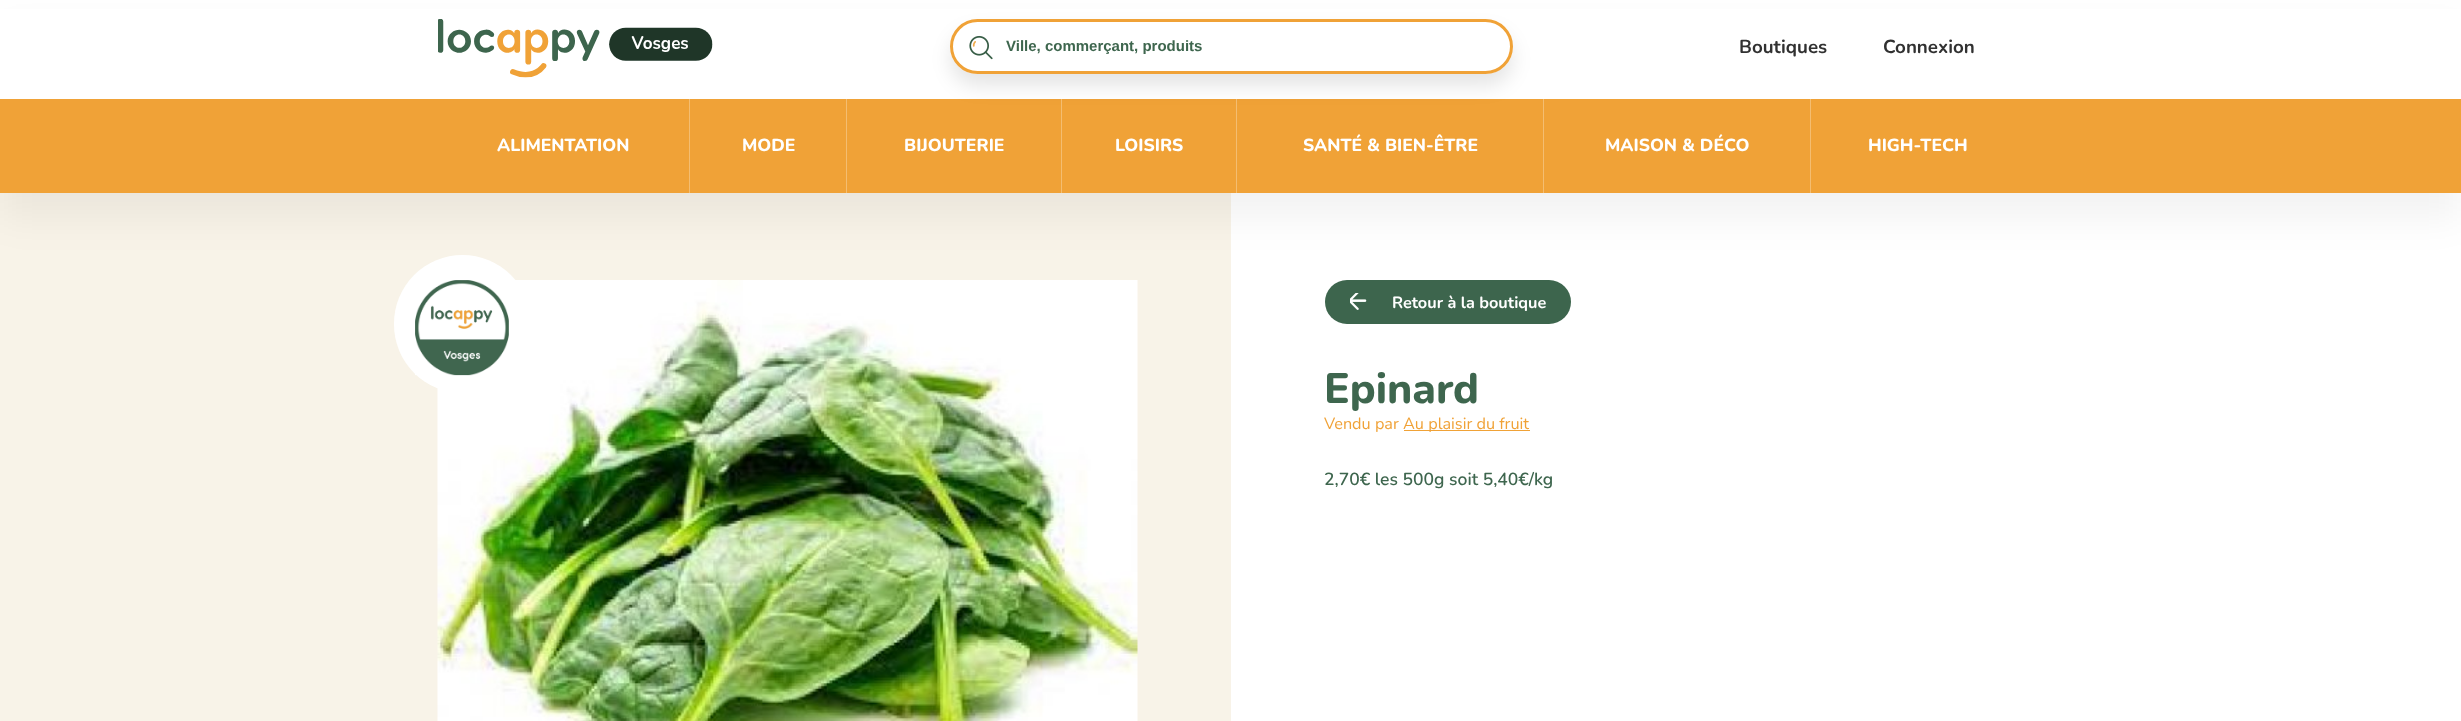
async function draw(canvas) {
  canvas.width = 2461
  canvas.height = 721
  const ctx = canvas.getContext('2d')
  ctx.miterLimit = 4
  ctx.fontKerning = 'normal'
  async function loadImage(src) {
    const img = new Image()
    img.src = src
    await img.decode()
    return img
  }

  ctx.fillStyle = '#fff'
  ctx.fillRect(0, 0, 2461, 721)
  ctx.fillStyle = '#f8f3e8'
  ctx.fillRect(0, 193, 1231, 528)
  ctx.drawImage(await loadImage('image3.png'), 437, 280, 701, 441)
  ctx.fillStyle = '#fff'
  ctx.beginPath()
  ctx.roundRect(394, 255, 137, 138, 68.5)
  ctx.fill()
  ctx.fillStyle = '#0000000d'
  ctx.filter = 'blur(19px)'
  ctx.beginPath()
  ctx.rect(0, 25, 2461, 193)
  ctx.fill()
  ctx.filter = 'none'
  ctx.fillStyle = '#fff'
  ctx.fillRect(0, 9, 2461, 90)
  ctx.drawImage(await loadImage('image0.png'), 438, 19, 275, 59)
  ctx.fillStyle = '#f0a237'
  ctx.fillRect(0, 99, 2461, 94)
  ctx.save()
  ctx.beginPath()
  ctx.moveTo(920, 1)
  ctx.lineTo(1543, 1)
  ctx.lineTo(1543, 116)
  ctx.lineTo(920, 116)
  ctx.closePath()
  ctx.moveTo(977.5, 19)
  ctx.lineTo(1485.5, 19)
  ctx.bezierCurveTo(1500.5, 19, 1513, 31.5, 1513, 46.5)
  ctx.bezierCurveTo(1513, 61.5, 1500.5, 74, 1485.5, 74)
  ctx.lineTo(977.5, 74)
  ctx.bezierCurveTo(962.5, 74, 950, 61.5, 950, 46.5)
  ctx.bezierCurveTo(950, 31.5, 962.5, 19, 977.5, 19)
  ctx.closePath()
  ctx.clip('evenodd')
  ctx.fillStyle = '#0000001a'
  ctx.filter = 'blur(9.5px)'
  ctx.beginPath()
  ctx.roundRect(950, 31, 563, 55, 27.5)
  ctx.fill()
  ctx.filter = 'none'
  ctx.restore()
  ctx.beginPath()
  ctx.roundRect(951.5, 20.5, 560, 52, 26)
  ctx.strokeStyle = '#f0a237'
  ctx.lineWidth = 3
  ctx.stroke()
  ctx.drawImage(await loadImage('image1.png'), 969, 35, 24, 25)
  ctx.font = 'bold 15px Liberation Sans'
  ctx.fillStyle = '#3e664e'
  ctx.fillText('Ville, commerçant, produits', 1006, 51)
  ctx.font = 'bold 18.75px Nunito'
  ctx.fillStyle = '#313131'
  ctx.fillText('Boutiques', 1739, 53)
  ctx.fillText('Connexion', 1883, 53)
  ctx.font = '800 17.5px Nunito'
  ctx.fillStyle = '#fff'
  ctx.fillText('ALIMENTATION', 497, 151)
  ctx.fillStyle = '#f4bd71'
  ctx.fillRect(689, 99, 1, 94)
  ctx.fillStyle = '#fff'
  ctx.fillText('MODE', 742, 151)
  ctx.fillStyle = '#f4bd71'
  ctx.fillRect(846, 99, 1, 94)
  ctx.fillStyle = '#fff'
  ctx.fillText('BIJOUTERIE', 904, 151)
  ctx.fillStyle = '#f4bd71'
  ctx.fillRect(1061, 99, 1, 94)
  ctx.fillStyle = '#fff'
  ctx.fillText('LOISIRS', 1115, 151)
  ctx.fillStyle = '#f4bd71'
  ctx.fillRect(1236, 99, 1, 94)
  ctx.fillStyle = '#fff'
  ctx.fillText('SANTÉ & BIEN-ÊTRE', 1303, 151)
  ctx.fillStyle = '#f4bd71'
  ctx.fillRect(1543, 99, 1, 94)
  ctx.fillStyle = '#fff'
  ctx.fillText('MAISON & DÉCO', 1605, 151)
  ctx.fillStyle = '#f4bd71'
  ctx.fillRect(1810, 99, 1, 94)
  ctx.fillStyle = '#fff'
  ctx.fillText('HIGH-TECH', 1868, 151)
  ctx.drawImage(await loadImage('image2.png'), 415, 280, 94, 96)
  ctx.fillStyle = '#3d654d'
  ctx.beginPath()
  ctx.roundRect(1325, 280, 246, 44, 22)
  ctx.fill()
  ctx.drawImage(await loadImage('image4.png'), 1350, 293, 17, 17)
  ctx.font = 'bold 16.25px Nunito'
  ctx.fillStyle = '#fff'
  ctx.fillText('Retour à la boutique', 1392, 308)
  ctx.font = '800 42.5px Nunito'
  ctx.fillStyle = '#3e664e'
  ctx.fillText('Epinard', 1324, 403)
  ctx.font = '16.25px Nunito'
  ctx.fillStyle = '#f0a237'
  ctx.fillText('Vendu par', 1324, 429)
  ctx.fillRect(1404, 430, 126, 1)
  ctx.fillText('Au plaisir du fruit', 1403, 429)
  ctx.font = '600 17.5px Nunito'
  ctx.fillStyle = '#3e664e'
  ctx.fillText('2,70€ les 500g soit 5,40€/kg', 1324, 485)
}

draw(document.querySelector('canvas'))
